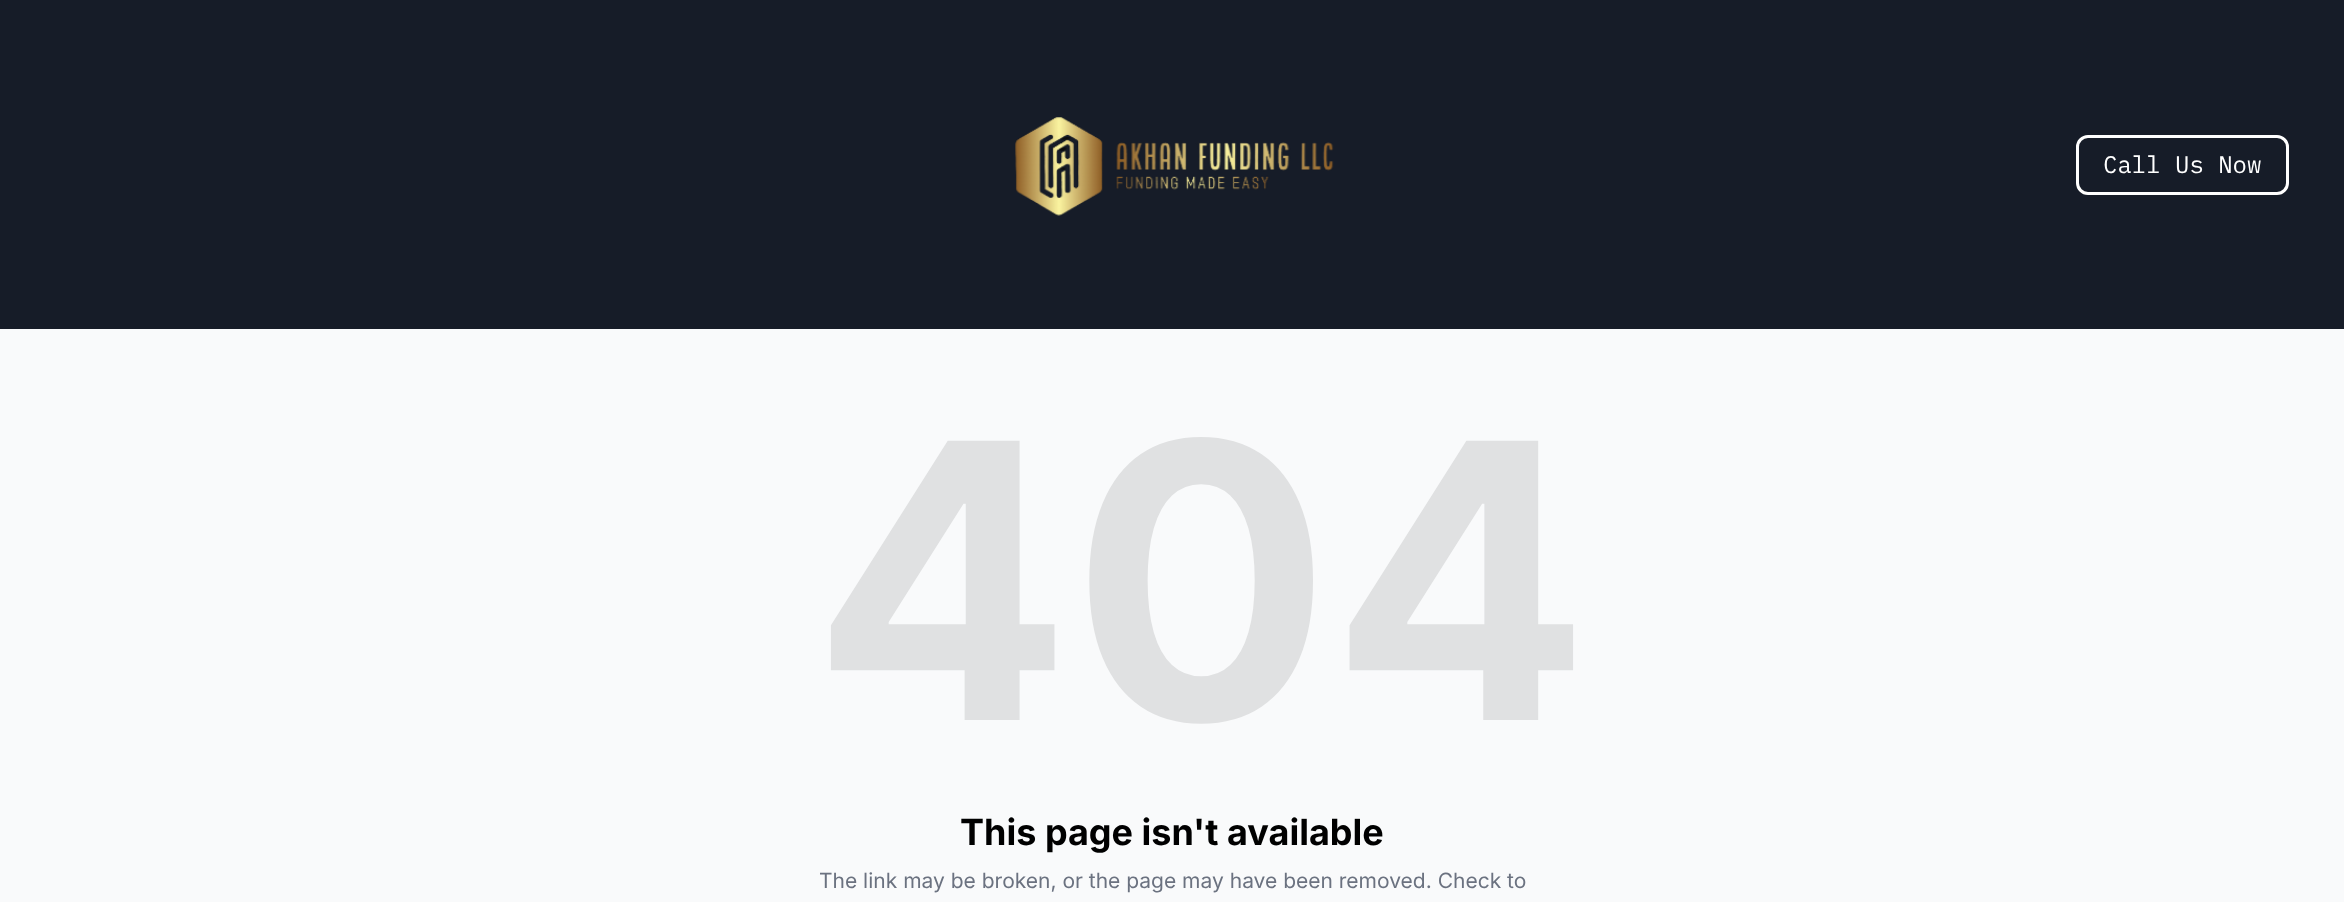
async function draw(canvas) {
  canvas.width = 2344
  canvas.height = 902
  const ctx = canvas.getContext('2d')
  ctx.miterLimit = 4
  ctx.fontKerning = 'normal'
  async function loadImage(src) {
    const img = new Image()
    img.src = src
    await img.decode()
    return img
  }

  ctx.fillStyle = '#f9fafb'
  ctx.fillRect(0, 0, 2344, 902)
  ctx.fillStyle = '#161c28'
  ctx.fillRect(0, 0, 2344, 329)
  ctx.drawImage(await loadImage('image0.png'), 1015, 117, 319, 99)
  ctx.beginPath()
  ctx.roundRect(2077.5, 136.5, 210, 57, 10.5)
  ctx.strokeStyle = '#fff'
  ctx.lineWidth = 3
  ctx.stroke()
  ctx.font = '24px IBM Plex Mono'
  ctx.fillStyle = '#fff'
  ctx.fillText('Call Us Now', 2103, 173)
  ctx.font = 'bold 384px Inter'
  ctx.fillStyle = '#e0e1e2'
  ctx.fillText('404', 812, 720)
  ctx.font = 'bold 36px Inter'
  ctx.fillStyle = '#000'
  ctx.fillText('This page isn\'t available', 960, 845)
  ctx.font = '21px Inter'
  ctx.fillStyle = '#6b7280'
  ctx.fillText('The link may be broken, or the page may have been removed. Check to', 819, 888)
}

draw(document.querySelector('canvas'))
